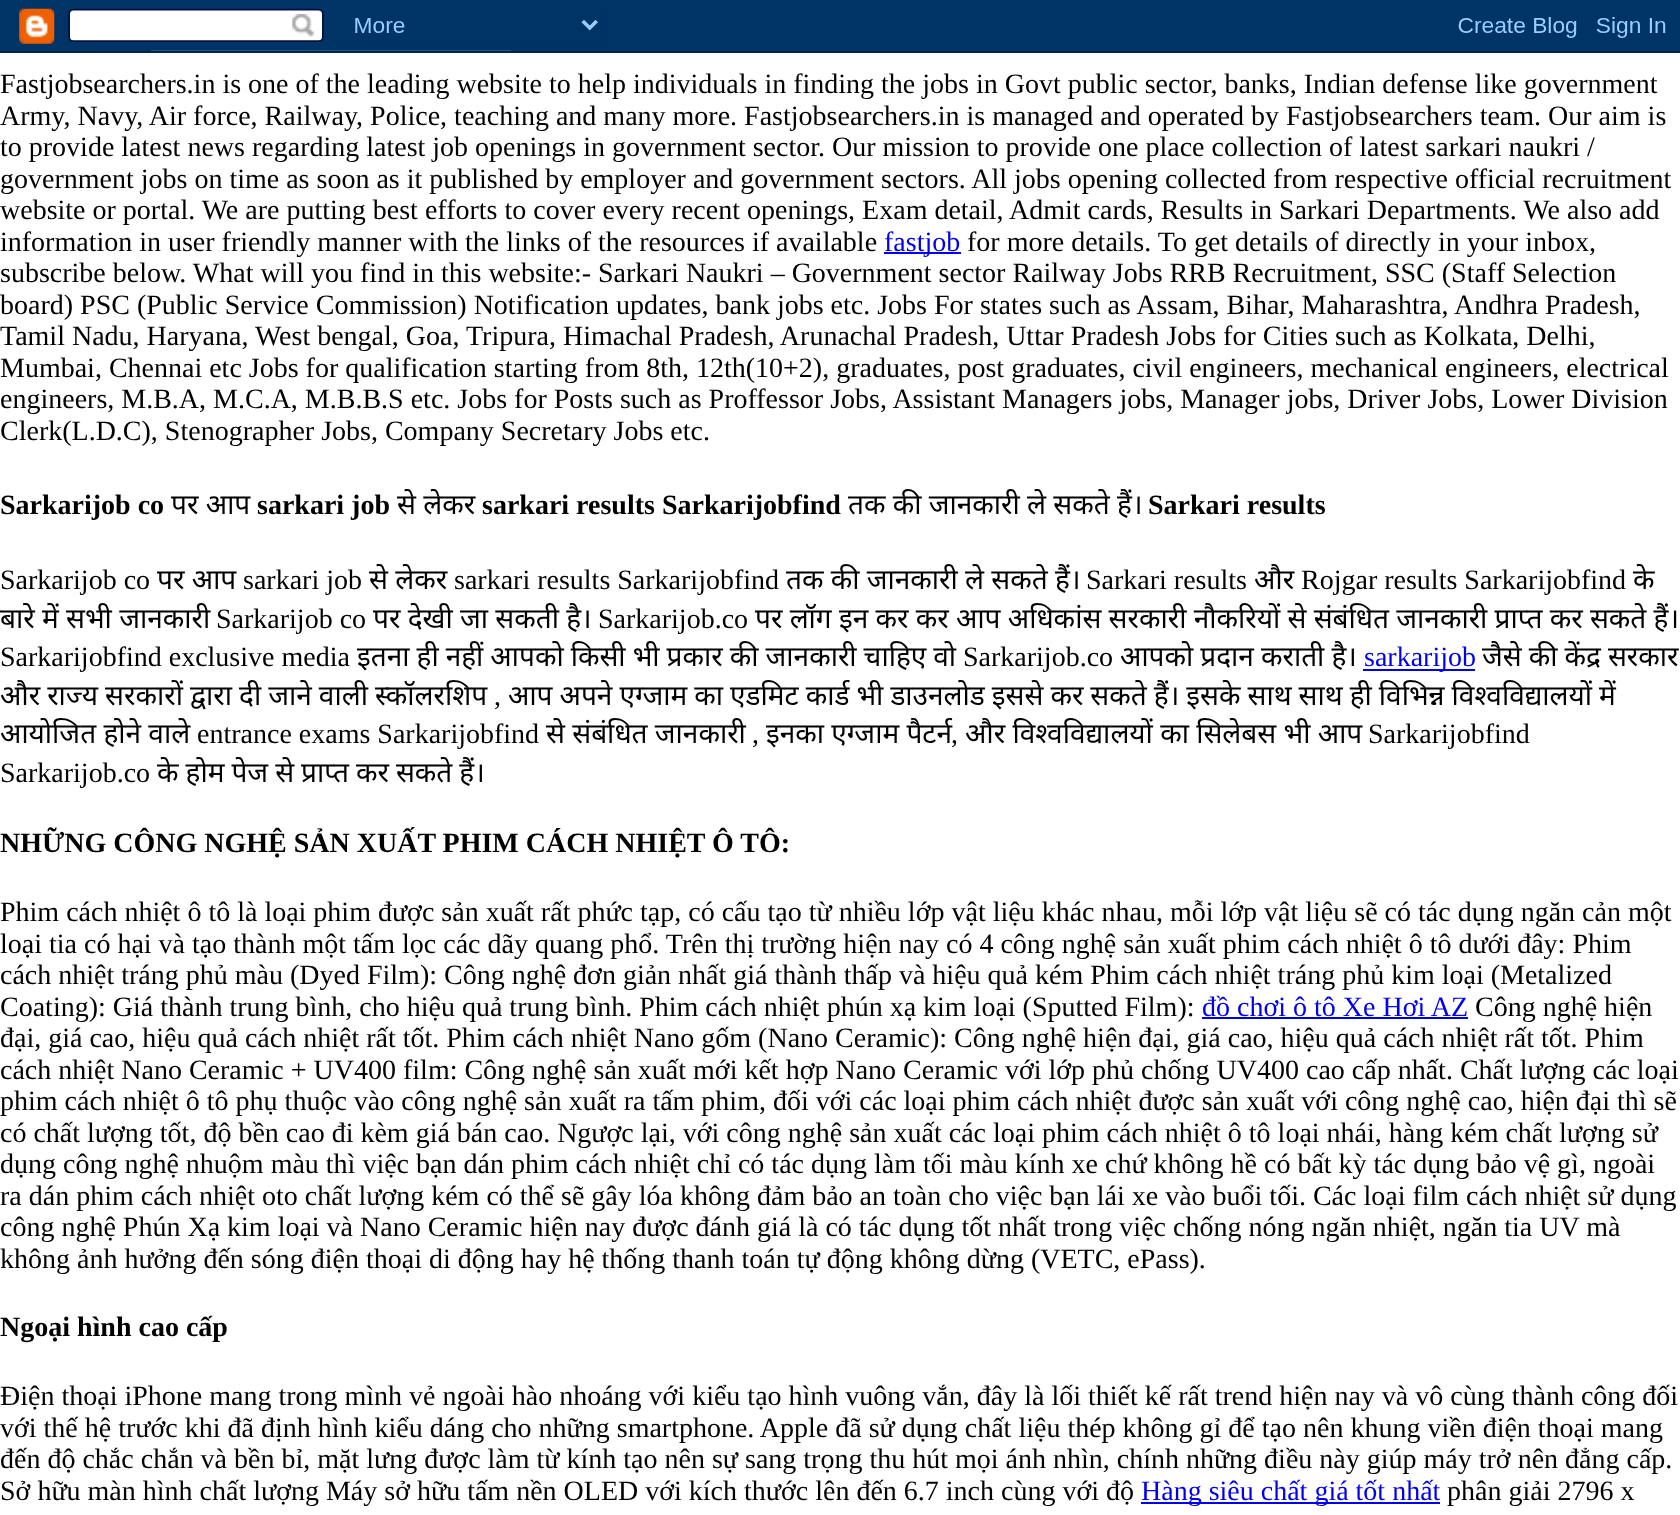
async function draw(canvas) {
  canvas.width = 1680
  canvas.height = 1515
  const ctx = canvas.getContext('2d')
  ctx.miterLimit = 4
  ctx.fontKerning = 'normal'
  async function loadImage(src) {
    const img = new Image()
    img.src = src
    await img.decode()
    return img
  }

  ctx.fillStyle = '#fff'
  ctx.fillRect(0, 0, 1680, 1515)
  ctx.drawImage(await loadImage('image0.png'), 0, 0, 1680, 53)
  ctx.font = '28px Liberation Serif'
  ctx.fillStyle = '#000'
  ctx.fillText('Fastjobsearchers.in is one of the leading website to help individuals in finding the jobs in Govt public sector, banks, Indian defense like government', 0, 93)
  ctx.fillText('Army, Navy, Air force, Railway, Police, teaching and many more. Fastjobsearchers.in is managed and operated by Fastjobsearchers team. Our aim is', 0, 125)
  ctx.fillText('to provide latest news regarding latest job openings in government sector. Our mission to provide one place collection of latest sarkari naukri /', 0, 156)
  ctx.fillText('government jobs on time as soon as it published by employer and government sectors. All jobs opening collected from respective official recruitment', 0, 188)
  ctx.fillText('website or portal. We are putting best efforts to cover every recent openings, Exam detail, Admit cards, Results in Sarkari Departments. We also add', 0, 219)
  ctx.fillText('information in user friendly manner with the links of the resources if available', 0, 251)
  ctx.fillStyle = '#00e'
  ctx.fillRect(884, 252, 77, 2)
  ctx.fillText('fastjob', 884, 251)
  ctx.fillStyle = '#000'
  ctx.fillText('for more details. To get details of directly in your inbox,', 967, 251)
  ctx.fillText('subscribe below. What will you find in this website:- Sarkari Naukri – Government sector Railway Jobs RRB Recruitment, SSC (Staff Selection', 0, 282)
  ctx.fillText('board) PSC (Public Service Commission) Notification updates, bank jobs etc. Jobs For states such as Assam, Bihar, Maharashtra, Andhra Pradesh,', 0, 314)
  ctx.fillText('Tamil Nadu, Haryana, West bengal, Goa, Tripura, Himachal Pradesh, Arunachal Pradesh, Uttar Pradesh Jobs for Cities such as Kolkata, Delhi,', 0, 345)
  ctx.fillText('Mumbai, Chennai etc Jobs for qualification starting from 8th, 12th(10+2), graduates, post graduates, civil engineers, mechanical engineers, electrical', 0, 377)
  ctx.fillText('engineers, M.B.A, M.C.A, M.B.B.S etc. Jobs for Posts such as Proffessor Jobs, Assistant Managers jobs, Manager jobs, Driver Jobs, Lower Division', 0, 408)
  ctx.fillText('Clerk(L.D.C), Stenographer Jobs, Company Secretary Jobs etc.', 0, 440)
  ctx.font = 'bold 28px Liberation Serif'
  ctx.fillText('Sarkarijob co', 0, 514)
  ctx.font = '28px Noto Sans'
  ctx.fillText('पर आप', 171, 514)
  ctx.font = 'bold 28px Liberation Serif'
  ctx.fillText('sarkari job', 257, 514)
  ctx.font = '28px Noto Sans'
  ctx.fillText('से लेकर', 397, 514)
  ctx.font = 'bold 28px Liberation Serif'
  ctx.fillText('sarkari results Sarkarijobfind', 482, 514)
  ctx.font = '28px Noto Sans'
  ctx.fillText('तक की जानकारी ले सकते हैं।', 848, 514)
  ctx.font = 'bold 28px Liberation Serif'
  ctx.fillText('Sarkari results', 1148, 514)
  ctx.font = '28px Liberation Serif'
  ctx.fillText('Sarkarijob co', 0, 589)
  ctx.font = '28px Noto Sans'
  ctx.fillText('पर आप', 157, 589)
  ctx.font = '28px Liberation Serif'
  ctx.fillText('sarkari job', 243, 589)
  ctx.font = '28px Noto Sans'
  ctx.fillText('से लेकर', 369, 589)
  ctx.font = '28px Liberation Serif'
  ctx.fillText('sarkari results Sarkarijobfind', 454, 589)
  ctx.font = '28px Noto Sans'
  ctx.fillText('तक की जानकारी ले सकते हैं।', 786, 589)
  ctx.font = '28px Liberation Serif'
  ctx.fillText('Sarkari results', 1086, 589)
  ctx.font = '28px Noto Sans'
  ctx.fillText('और', 1254, 589)
  ctx.font = '28px Liberation Serif'
  ctx.fillText('Rojgar results Sarkarijobfind', 1301, 589)
  ctx.font = '28px Noto Sans'
  ctx.fillText('के', 1633, 589)
  ctx.fillText('बारे में सभी जानकारी', 0, 628)
  ctx.font = '28px Liberation Serif'
  ctx.fillText('Sarkarijob co', 216, 628)
  ctx.font = '28px Noto Sans'
  ctx.fillText('पर देखी जा सकती है।', 373, 628)
  ctx.font = '28px Liberation Serif'
  ctx.fillText('Sarkarijob.co', 598, 628)
  ctx.font = '28px Noto Sans'
  ctx.fillText('पर लॉग इन कर कर आप अधिकांस सरकारी नौकरियों से संबंधित जानकारी प्राप्त कर सकते हैं।', 755, 628)
  ctx.font = '28px Liberation Serif'
  ctx.fillText('Sarkarijobfind exclusive media', 0, 666)
  ctx.wordSpacing = '-0.25px'
  ctx.font = '28px Noto Sans'
  ctx.fillText('इतना ही नहीं आपको किसी भी प्रकार की जानकारी चाहिए वो', 357, 666)
  ctx.wordSpacing = '0px'
  ctx.font = '28px Liberation Serif'
  ctx.fillText('Sarkarijob.co', 963, 666)
  ctx.wordSpacing = '-0.25px'
  ctx.font = '28px Noto Sans'
  ctx.fillText('आपको प्रदान कराती है।', 1120, 666)
  ctx.fillStyle = '#00e'
  ctx.fillRect(1363, 669, 112, 2)
  ctx.wordSpacing = '0px'
  ctx.font = '28px Liberation Serif'
  ctx.fillText('sarkarijob', 1364, 666)
  ctx.wordSpacing = '-0.25px'
  ctx.font = '28px Noto Sans'
  ctx.fillStyle = '#000'
  ctx.fillText('जैसे की केंद्र सरकार', 1482, 666)
  ctx.fillText('और राज्य सरकारों द्वारा दी जाने वाली स्कॉलरशिप', 0, 705)
  ctx.wordSpacing = '0px'
  ctx.font = '28px Liberation Serif'
  ctx.fillText(',', 494, 705)
  ctx.wordSpacing = '-0.25px'
  ctx.font = '28px Noto Sans'
  ctx.fillText('आप अपने एग्जाम का एडमिट कार्ड भी डाउनलोड इससे कर सकते हैं। इसके साथ साथ ही विभिन्न विश्वविद्यालयों में', 508, 705)
  ctx.wordSpacing = '0px'
  ctx.fillText('आयोजित होने वाले', 0, 743)
  ctx.font = '28px Liberation Serif'
  ctx.fillText('entrance exams Sarkarijobfind', 197, 743)
  ctx.font = '28px Noto Sans'
  ctx.fillText('से संबंधित जानकारी', 546, 743)
  ctx.font = '28px Liberation Serif'
  ctx.fillText(',', 752, 743)
  ctx.font = '28px Noto Sans'
  ctx.fillText('इनका एग्जाम पैटर्न', 766, 743)
  ctx.font = '28px Liberation Serif'
  ctx.fillText(',', 951, 743)
  ctx.font = '28px Noto Sans'
  ctx.fillText('और विश्वविद्यालयों का सिलेबस भी आप', 965, 743)
  ctx.font = '28px Liberation Serif'
  ctx.fillText('Sarkarijobfind', 1368, 743)
  ctx.fillText('Sarkarijob.co', 0, 782)
  ctx.wordSpacing = '-0.25px'
  ctx.font = '28px Noto Sans'
  ctx.fillText('के होम पेज से प्राप्त कर सकते हैं।', 157, 782)
  ctx.wordSpacing = '0px'
  ctx.font = 'bold 28px Liberation Serif'
  ctx.fillText('NHỮNG CÔNG NGHỆ SẢN XUẤT PHIM CÁCH NHIỆT Ô TÔ:', 0, 852)
  ctx.font = '28px Liberation Serif'
  ctx.fillText('Phim cách nhiệt ô tô là loại phim được sản xuất rất phức tạp, có cấu tạo từ nhiều lớp vật liệu khác nhau, mỗi lớp vật liệu sẽ có tác dụng ngăn cản một', 0, 921)
  ctx.fillText('loại tia có hại và tạo thành một tấm lọc các dãy quang phổ. Trên thị trường hiện nay có 4 công nghệ sản xuất phim cách nhiệt ô tô dưới đây: Phim', 0, 953)
  ctx.fillText('cách nhiệt tráng phủ màu (Dyed Film): Công nghệ đơn giản nhất giá thành thấp và hiệu quả kém Phim cách nhiệt tráng phủ kim loại (Metalized', 0, 984)
  ctx.fillText('Coating): Giá thành trung bình, cho hiệu quả trung bình. Phim cách nhiệt phún xạ kim loại (Sputted Film):', 0, 1016)
  ctx.fillStyle = '#00e'
  ctx.fillText('đồ chơi ô tô Xe Hơi AZ', 1202, 1016)
  ctx.fillRect(1202, 1017, 266, 2)
  ctx.fillStyle = '#000'
  ctx.fillText('Công nghệ hiện', 1475, 1016)
  ctx.fillText('đại, giá cao, hiệu quả cách nhiệt rất tốt. Phim cách nhiệt Nano gốm (Nano Ceramic): Công nghệ hiện đại, giá cao, hiệu quả cách nhiệt rất tốt. Phim', 0, 1047)
  ctx.fillText('cách nhiệt Nano Ceramic + UV400 film: Công nghệ sản xuất mới kết hợp Nano Ceramic với lớp phủ chống UV400 cao cấp nhất. Chất lượng các loại', 0, 1079)
  ctx.fillText('phim cách nhiệt ô tô phụ thuộc vào công nghệ sản xuất ra tấm phim, đối với các loại phim cách nhiệt được sản xuất với công nghệ cao, hiện đại thì sẽ', 0, 1110)
  ctx.fillText('có chất lượng tốt, độ bền cao đi kèm giá bán cao. Ngược lại, với công nghệ sản xuất các loại phim cách nhiệt ô tô loại nhái, hàng kém chất lượng sử', 0, 1142)
  ctx.fillText('dụng công nghệ nhuộm màu thì việc bạn dán phim cách nhiệt chỉ có tác dụng làm tối màu kính xe chứ không hề có bất kỳ tác dụng bảo vệ gì, ngoài', 0, 1173)
  ctx.fillText('ra dán phim cách nhiệt oto chất lượng kém có thể sẽ gây lóa không đảm bảo an toàn cho việc bạn lái xe vào buổi tối. Các loại film cách nhiệt sử dụng', 0, 1205)
  ctx.fillText('công nghệ Phún Xạ kim loại và Nano Ceramic hiện nay được đánh giá là có tác dụng tốt nhất trong việc chống nóng ngăn nhiệt, ngăn tia UV mà', 0, 1236)
  ctx.fillText('không ảnh hưởng đến sóng điện thoại di động hay hệ thống thanh toán tự động không dừng (VETC, ePass).', 0, 1268)
  ctx.font = 'bold 28px Liberation Serif'
  ctx.fillText('Ngoại hình cao cấp', 0, 1336)
  ctx.font = '28px Liberation Serif'
  ctx.fillText('Điện thoại iPhone mang trong mình vẻ ngoài hào nhoáng với kiểu tạo hình vuông vắn, đây là lối thiết kế rất trend hiện nay và vô cùng thành công đối', 0, 1405)
  ctx.fillText('với thế hệ trước khi đã định hình kiểu dáng cho những smartphone. Apple đã sử dụng chất liệu thép không gỉ để tạo nên khung viền điện thoại mang', 0, 1437)
  ctx.fillText('đến độ chắc chắn và bền bỉ, mặt lưng được làm từ kính tạo nên sự sang trọng thu hút mọi ánh nhìn, chính những điều này giúp máy trở nên đẳng cấp.', 0, 1468)
  ctx.fillText('Sở hữu màn hình chất lượng Máy sở hữu tấm nền OLED với kích thước lên đến 6.7 inch cùng với độ', 0, 1500)
  ctx.fillStyle = '#00e'
  ctx.fillRect(1141, 1502, 299, 2)
  ctx.fillText('Hàng siêu chất giá tốt nhất', 1141, 1500)
  ctx.fillStyle = '#000'
  ctx.fillText('phân giải 2796 x', 1447, 1500)
}

draw(document.querySelector('canvas'))
